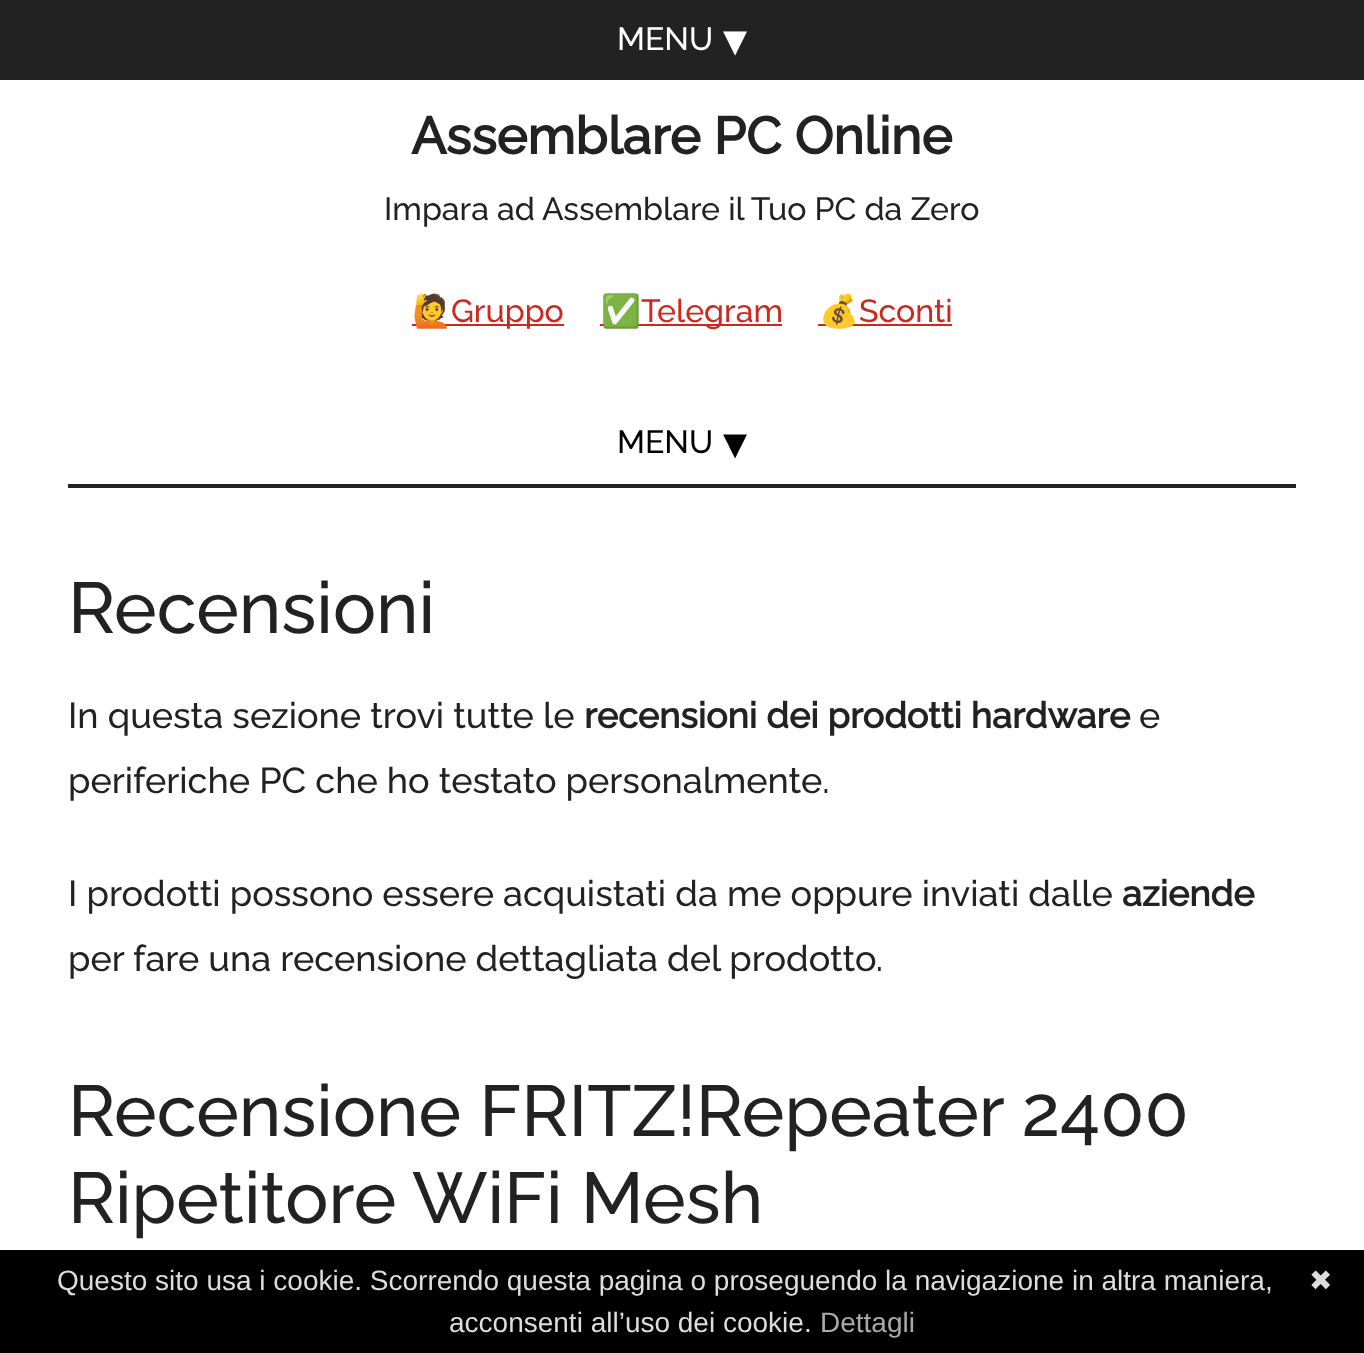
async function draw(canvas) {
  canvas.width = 1364
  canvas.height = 1353
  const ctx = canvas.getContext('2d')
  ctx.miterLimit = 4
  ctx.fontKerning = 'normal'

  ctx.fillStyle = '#fff'
  ctx.fillRect(0, 0, 1364, 1353)
  ctx.fillStyle = '#222'
  ctx.fillRect(0, 0, 1364, 80)
  ctx.font = '100 32px Raleway'
  ctx.fillStyle = '#fff'
  ctx.fillText('MENU', 617, 50)
  ctx.font = '48px DejaVu Sans'
  ctx.fillText('▾', 723, 56)
  ctx.font = 'bold 52px Raleway'
  ctx.fillStyle = '#222'
  ctx.fillText('Assemblare PC Online', 411, 154)
  ctx.font = '100 32px Raleway'
  ctx.fillText('Impara ad Assemblare il Tuo PC da Zero', 384, 220)
  ctx.fillStyle = '#ce271b'
  ctx.fillRect(412, 324, 152, 2)
  ctx.font = '32px Noto Color Emoji'
  ctx.fillText('🙋', 412, 322)
  ctx.font = '100 32px Raleway'
  ctx.fillText('Gruppo', 451, 322)
  ctx.fillRect(600, 324, 182, 2)
  ctx.font = '32px Noto Color Emoji'
  ctx.fillText('✅', 601, 322)
  ctx.font = '100 32px Raleway'
  ctx.fillText('Telegram', 641, 322)
  ctx.fillRect(818, 324, 134, 2)
  ctx.font = '32px Noto Color Emoji'
  ctx.fillText('💰', 819, 322)
  ctx.font = '100 32px Raleway'
  ctx.fillText('Sconti', 859, 322)
  ctx.fillStyle = '#222'
  ctx.fillRect(68, 484, 1228, 4)
  ctx.fillStyle = '#000'
  ctx.fillText('MENU', 617, 453)
  ctx.font = '48px DejaVu Sans'
  ctx.fillText('▾', 723, 459)
  ctx.font = '100 72px Raleway'
  ctx.fillStyle = '#222'
  ctx.fillText('Recensioni', 68, 633)
  ctx.font = '100 36px Raleway'
  ctx.fillText('In questa sezione trovi tutte le', 68, 728)
  ctx.font = 'bold 36px Raleway'
  ctx.fillText('recensioni dei prodotti hardware', 584, 728)
  ctx.font = '100 36px Raleway'
  ctx.fillText('e', 1139, 728)
  ctx.fillText('periferiche PC che ho testato personalmente.', 68, 793)
  ctx.fillText('I prodotti possono essere acquistati da me oppure inviati dalle', 68, 906)
  ctx.font = 'bold 36px Raleway'
  ctx.fillText('aziende', 1122, 906)
  ctx.font = '100 36px Raleway'
  ctx.fillText('per fare una recensione dettagliata del prodotto.', 68, 971)
  ctx.font = '100 72px Raleway'
  ctx.fillText('Recensione FRITZ!Repeater 2400', 68, 1136)
  ctx.fillText('Ripetitore WiFi Mesh', 68, 1223)
  ctx.fillStyle = '#000'
  ctx.fillRect(0, 1250, 1364, 103)
  ctx.font = '28px Liberation Sans'
  ctx.fillStyle = '#ddd'
  ctx.fillText('Questo sito usa i cookie. Scorrendo questa pagina o proseguendo la navigazione in altra maniera,', 57, 1290)
  ctx.font = '28px DejaVu Sans'
  ctx.fillText('✖', 1309, 1290)
  ctx.font = '28px Liberation Sans'
  ctx.fillText('acconsenti all’uso dei cookie.', 449, 1332)
  ctx.fillStyle = '#aaa'
  ctx.fillText('Dettagli', 820, 1332)
}

draw(document.querySelector('canvas'))
